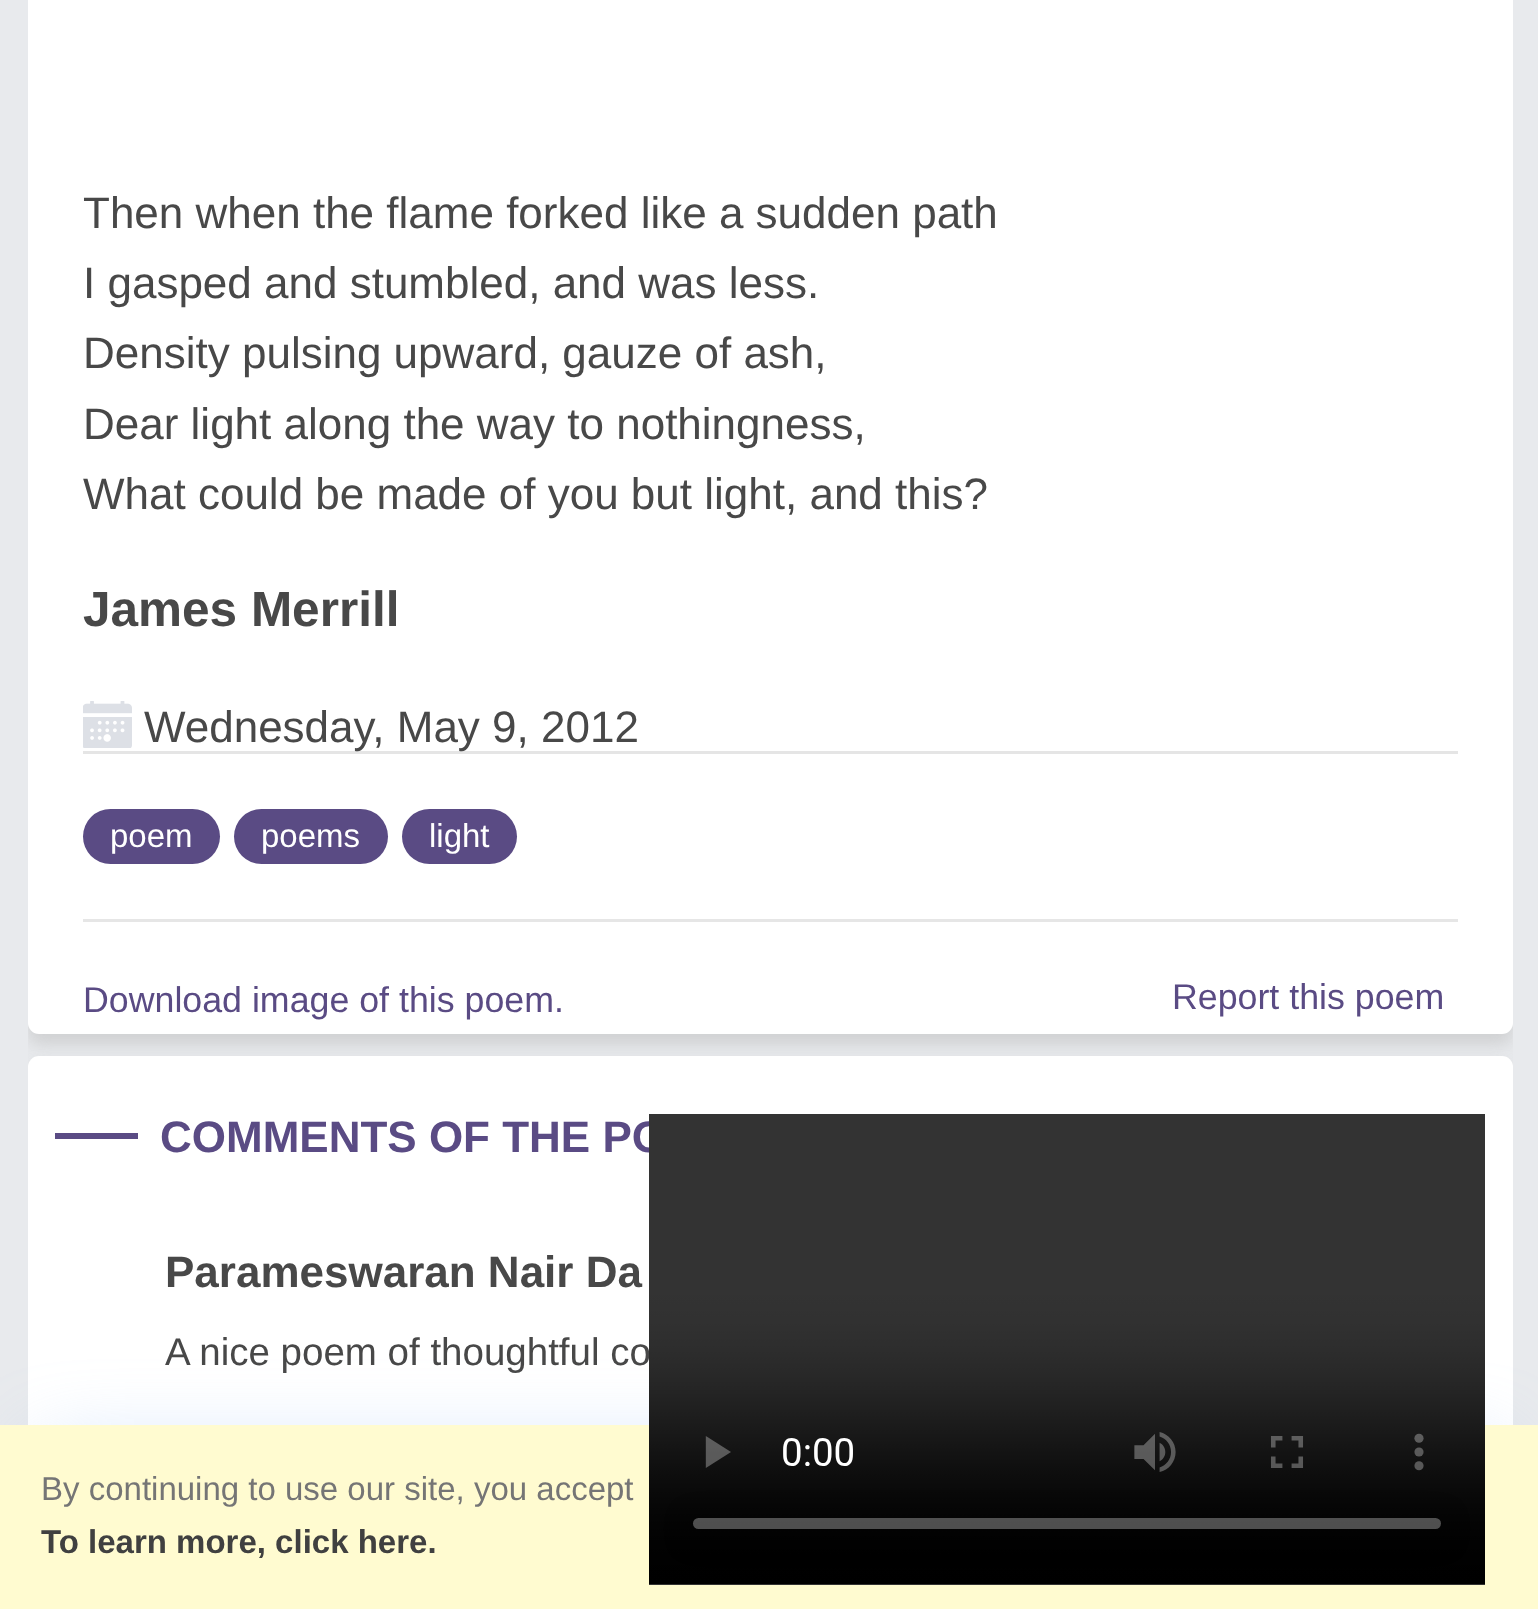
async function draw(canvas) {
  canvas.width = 1538
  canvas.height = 1609
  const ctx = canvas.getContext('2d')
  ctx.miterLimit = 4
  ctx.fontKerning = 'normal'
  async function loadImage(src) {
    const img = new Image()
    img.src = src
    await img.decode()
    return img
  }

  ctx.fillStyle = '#e8eaed'
  ctx.fillRect(0, 0, 1538, 1609)
  ctx.save()
  ctx.beginPath()
  ctx.rect(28, 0, 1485, 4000)
  ctx.clip()
  ctx.fillStyle = '#b9b9b980'
  ctx.filter = 'blur(8px)'
  ctx.beginPath()
  ctx.roundRect(28, -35, 1485, 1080, 11)
  ctx.fill()
  ctx.filter = 'none'
  ctx.restore()
  ctx.fillStyle = '#fff'
  ctx.beginPath()
  ctx.roundRect(28, -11, 1485, 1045, 11)
  ctx.fill()
  ctx.font = '44px Liberation Sans'
  ctx.fillStyle = '#484848'
  ctx.fillText('Then when the flame forked like a sudden path', 83, 228)
  ctx.fillText('I gasped and stumbled, and was less.', 83, 298)
  ctx.fillText('Density pulsing upward, gauze of ash,', 83, 368)
  ctx.fillText('Dear light along the way to nothingness,', 83, 439)
  ctx.fillText('What could be made of you but light, and this?', 83, 509)
  ctx.font = 'bold 49.5px Liberation Sans'
  ctx.fillText('James Merrill', 83, 626)
  ctx.drawImage(await loadImage('image0.png'), 83, 701, 49, 47)
  ctx.font = '44px Liberation Sans'
  ctx.fillText('Wednesday, May 9, 2012', 144, 742)
  ctx.fillStyle = '#0000001a'
  ctx.fillRect(83, 751, 1375, 3)
  ctx.fillStyle = '#e6e6e6'
  ctx.fillRect(83, 919, 1375, 3)
  ctx.fillStyle = '#5a4b84'
  ctx.beginPath()
  ctx.roundRect(83, 809, 137, 55, 27.5)
  ctx.fill()
  ctx.font = '33px Liberation Sans'
  ctx.fillStyle = '#fff'
  ctx.fillText('poem', 110, 847)
  ctx.fillStyle = '#5a4b84'
  ctx.beginPath()
  ctx.roundRect(234, 809, 154, 55, 27.5)
  ctx.fill()
  ctx.fillStyle = '#fff'
  ctx.fillText('poems', 261, 847)
  ctx.fillStyle = '#5a4b84'
  ctx.beginPath()
  ctx.roundRect(402, 809, 115, 55, 27.5)
  ctx.fill()
  ctx.fillStyle = '#fff'
  ctx.fillText('light', 429, 847)
  ctx.font = '35.75px Liberation Sans'
  ctx.fillStyle = '#5a4b84'
  ctx.fillText('Download image of this poem.', 83, 1012)
  ctx.fillText('Report this poem', 1172, 1009)
  ctx.save()
  ctx.beginPath()
  ctx.rect(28, 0, 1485, 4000)
  ctx.clip()
  ctx.fillStyle = '#b9b9b980'
  ctx.filter = 'blur(8px)'
  ctx.beginPath()
  ctx.roundRect(28, 1067, 1485, 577, 11)
  ctx.fill()
  ctx.filter = 'none'
  ctx.restore()
  ctx.fillStyle = '#fff'
  ctx.beginPath()
  ctx.roundRect(28, 1056, 1485, 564, 11)
  ctx.fill()
  ctx.font = 'bold 44px Liberation Sans'
  ctx.fillStyle = '#5a4b84'
  ctx.fillText('COMMENTS OF THE PO', 160, 1152)
  ctx.font = '38.5px Liberation Sans'
  ctx.fillStyle = '#484848'
  ctx.fillText('A nice poem of thoughtful co', 165, 1365)
  ctx.fillStyle = '#98bff880'
  ctx.filter = 'blur(41px)'
  ctx.beginPath()
  ctx.rect(41, 1452, 1458, 105)
  ctx.fill()
  ctx.filter = 'none'
  ctx.fillStyle = '#fffbd0'
  ctx.fillRect(0, 1425, 1538, 184)
  ctx.drawImage(await loadImage('image1.png'), 649, 1114, 836, 471)
  ctx.fillStyle = '#5a4b84'
  ctx.fillRect(55, 1133, 83, 6)
  ctx.font = 'bold 44px Liberation Sans'
  ctx.fillStyle = '#484848'
  ctx.fillText('Parameswaran Nair Da', 165, 1287)
  ctx.font = '33px Liberation Sans'
  ctx.fillStyle = '#757575'
  ctx.fillText('By continuing to use our site, you accept', 41, 1500)
  ctx.font = 'bold 33px Liberation Sans'
  ctx.fillStyle = '#404040'
  ctx.fillText('To learn more, click here.', 41, 1553)
}

draw(document.querySelector('canvas'))
